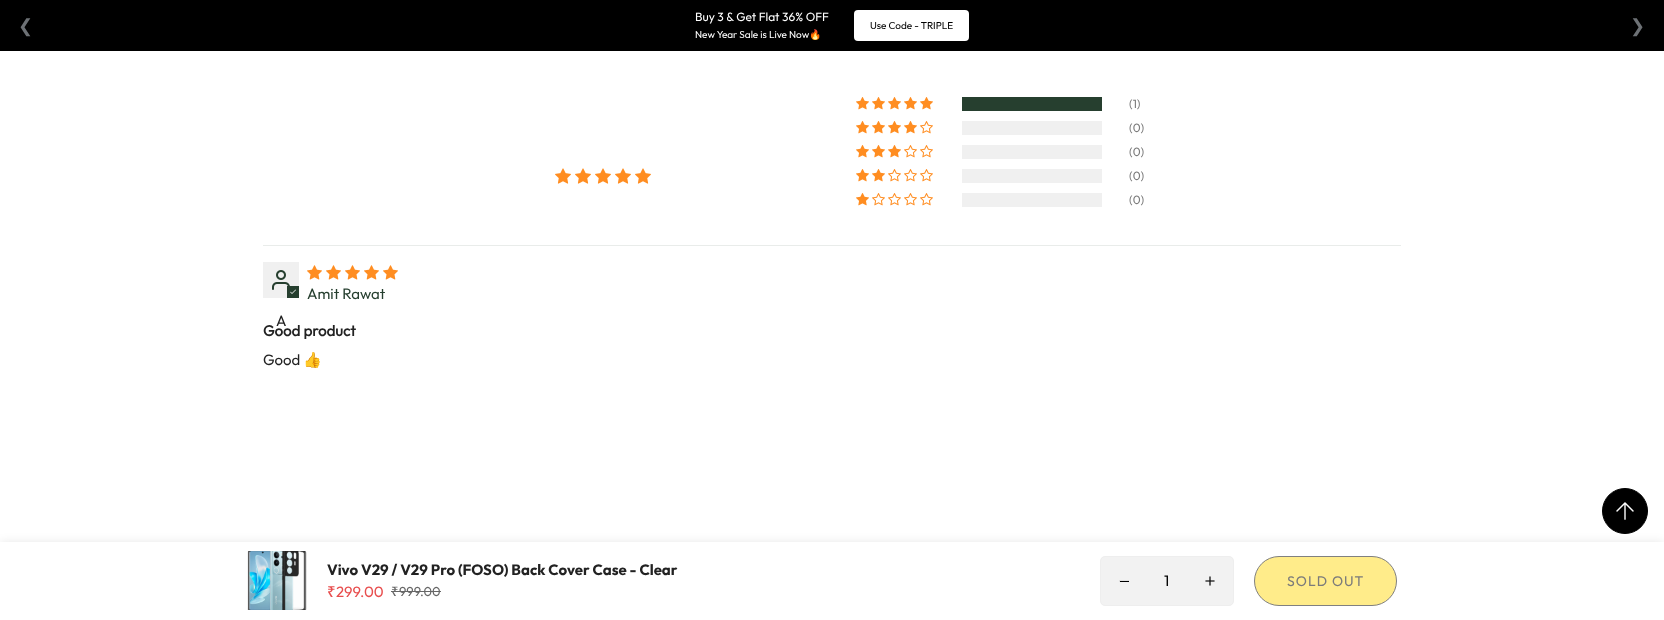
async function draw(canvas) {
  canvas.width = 1664
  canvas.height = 620
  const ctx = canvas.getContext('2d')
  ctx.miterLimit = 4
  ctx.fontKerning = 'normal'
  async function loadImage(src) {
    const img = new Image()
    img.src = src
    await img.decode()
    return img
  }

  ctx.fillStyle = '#fff'
  ctx.fillRect(0, 0, 1664, 620)
  ctx.fillStyle = '#000'
  ctx.fillRect(0, 0, 1664, 51)
  ctx.font = '18px DejaVu Sans'
  ctx.fillStyle = '#6d7175'
  ctx.fillText('❮', 18, 32)
  ctx.font = '12px Outfit'
  ctx.fillStyle = '#fff'
  ctx.fillText('Buy 3 & Get Flat 36% OFF', 695, 21)
  ctx.font = '10px Outfit'
  ctx.fillText('New Year Sale is Live Now', 695, 38)
  ctx.font = '10px Noto Color Emoji'
  ctx.fillText('🔥', 809, 38)
  ctx.beginPath()
  ctx.roundRect(854, 10, 115, 31, 4)
  ctx.fill()
  ctx.font = '10px Outfit'
  ctx.fillStyle = '#000'
  ctx.fillText('Use Code - TRIPLE', 870, 29)
  ctx.font = '18px DejaVu Sans'
  ctx.fillStyle = '#6d7175'
  ctx.fillText('❯', 1630, 32)
  ctx.drawImage(await loadImage('image0.png'), 555, 168, 16, 16)
  ctx.drawImage(await loadImage('image0.png'), 575, 168, 16, 16)
  ctx.drawImage(await loadImage('image0.png'), 595, 168, 16, 16)
  ctx.drawImage(await loadImage('image0.png'), 615, 168, 16, 16)
  ctx.drawImage(await loadImage('image0.png'), 635, 168, 16, 16)
  ctx.drawImage(await loadImage('image1.png'), 856, 97, 13, 13)
  ctx.drawImage(await loadImage('image1.png'), 872, 97, 13, 13)
  ctx.drawImage(await loadImage('image1.png'), 888, 97, 13, 13)
  ctx.drawImage(await loadImage('image1.png'), 904, 97, 13, 13)
  ctx.drawImage(await loadImage('image1.png'), 920, 97, 13, 13)
  ctx.fillStyle = '#263f2f'
  ctx.fillRect(962, 97, 140, 14)
  ctx.font = '12px Outfit'
  ctx.fillStyle = '#7b7b7b'
  ctx.fillText('(1)', 1129, 108)
  ctx.drawImage(await loadImage('image1.png'), 856, 121, 13, 13)
  ctx.drawImage(await loadImage('image1.png'), 872, 121, 13, 13)
  ctx.drawImage(await loadImage('image1.png'), 888, 121, 13, 13)
  ctx.drawImage(await loadImage('image1.png'), 904, 121, 13, 13)
  ctx.drawImage(await loadImage('image2.png'), 920, 121, 13, 13)
  ctx.fillStyle = '#f0f0f0'
  ctx.fillRect(962, 121, 140, 14)
  ctx.fillStyle = '#7b7b7b'
  ctx.fillText('(0)', 1129, 132)
  ctx.drawImage(await loadImage('image1.png'), 856, 145, 13, 13)
  ctx.drawImage(await loadImage('image1.png'), 872, 145, 13, 13)
  ctx.drawImage(await loadImage('image1.png'), 888, 145, 13, 13)
  ctx.drawImage(await loadImage('image2.png'), 904, 145, 13, 13)
  ctx.drawImage(await loadImage('image2.png'), 920, 145, 13, 13)
  ctx.fillStyle = '#f0f0f0'
  ctx.fillRect(962, 145, 140, 14)
  ctx.fillStyle = '#7b7b7b'
  ctx.fillText('(0)', 1129, 156)
  ctx.drawImage(await loadImage('image1.png'), 856, 169, 13, 13)
  ctx.drawImage(await loadImage('image1.png'), 872, 169, 13, 13)
  ctx.drawImage(await loadImage('image2.png'), 888, 169, 13, 13)
  ctx.drawImage(await loadImage('image2.png'), 904, 169, 13, 13)
  ctx.drawImage(await loadImage('image2.png'), 920, 169, 13, 13)
  ctx.fillStyle = '#f0f0f0'
  ctx.fillRect(962, 169, 140, 14)
  ctx.fillStyle = '#7b7b7b'
  ctx.fillText('(0)', 1129, 180)
  ctx.drawImage(await loadImage('image1.png'), 856, 193, 13, 13)
  ctx.drawImage(await loadImage('image2.png'), 872, 193, 13, 13)
  ctx.drawImage(await loadImage('image2.png'), 888, 193, 13, 13)
  ctx.drawImage(await loadImage('image2.png'), 904, 193, 13, 13)
  ctx.drawImage(await loadImage('image2.png'), 920, 193, 13, 13)
  ctx.fillStyle = '#f0f0f0'
  ctx.fillRect(962, 193, 140, 14)
  ctx.fillStyle = '#7b7b7b'
  ctx.fillText('(0)', 1129, 204)
  ctx.fillStyle = '#e9ecea'
  ctx.fillRect(263, 245, 1138, 1)
  ctx.drawImage(await loadImage('image3.png'), 307, 265, 15, 15)
  ctx.drawImage(await loadImage('image3.png'), 326, 265, 15, 15)
  ctx.drawImage(await loadImage('image3.png'), 345, 265, 15, 15)
  ctx.drawImage(await loadImage('image3.png'), 364, 265, 15, 15)
  ctx.drawImage(await loadImage('image3.png'), 383, 265, 15, 15)
  ctx.font = '15px Outfit'
  ctx.fillStyle = '#263f2f'
  ctx.fillText('Amit Rawat', 307, 299)
  ctx.fillStyle = '#f0f0f0'
  ctx.fillRect(263, 262, 36, 36)
  ctx.drawImage(await loadImage('image4.png'), 272, 270, 18, 20)
  ctx.fillStyle = '#263f2f'
  ctx.fillRect(287, 286, 12, 12)
  ctx.drawImage(await loadImage('image5.png'), 290, 289, 6, 5)
  ctx.fillStyle = '#222'
  ctx.fillText('A', 276, 326)
  ctx.font = 'bold 15px Outfit'
  ctx.fillText('Good product', 263, 336)
  ctx.font = '15px Outfit'
  ctx.fillText('Good', 263, 365)
  ctx.font = '15px Noto Color Emoji'
  ctx.fillText('👍', 303, 365)
  ctx.fillStyle = '#00000017'
  ctx.filter = 'blur(5px)'
  ctx.beginPath()
  ctx.rect(0, 542, 1664, 78)
  ctx.fill()
  ctx.filter = 'none'
  ctx.fillStyle = '#fff'
  ctx.fillRect(0, 542, 1664, 78)
  ctx.drawImage(await loadImage('image6.png'), 247, 551, 60, 59)
  ctx.font = 'bold 15px "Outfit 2"'
  ctx.fillStyle = '#222'
  ctx.fillText('Vivo V29 / V29 Pro (FOSO) Back Cover Case - Clear', 327, 575)
  ctx.font = '500 15px Noto Sans'
  ctx.fillStyle = '#e84e4e'
  ctx.fillText('₹', 327, 597)
  ctx.font = '15px Outfit'
  ctx.fillText('299.00', 336, 597)
  ctx.font = '500 13px Noto Sans'
  ctx.fillStyle = '#666'
  ctx.fillText('₹', 391, 596)
  ctx.font = '13px Outfit'
  ctx.fillText('999.00', 399, 596)
  ctx.fillRect(391, 591, 50, 1)
  ctx.fillStyle = '#f2f2f2'
  ctx.beginPath()
  ctx.roundRect(1100.5, 556.5, 133, 49, 4.5)
  ctx.fill()
  ctx.strokeStyle = '#eee'
  ctx.stroke()
  ctx.drawImage(await loadImage('image7.png'), 1119, 580, 10, 2)
  ctx.font = '15px Outfit'
  ctx.fillStyle = '#000'
  ctx.fillText('1', 1164, 586)
  ctx.drawImage(await loadImage('image8.png'), 1205, 576, 10, 10)
  ctx.fillStyle = '#ffec8a'
  ctx.beginPath()
  ctx.roundRect(1254.5, 556.5, 142, 49, 24.5)
  ctx.fill()
  ctx.strokeStyle = '#808080'
  ctx.stroke()
  ctx.letterSpacing = '1px'
  ctx.font = '14px Outfit'
  ctx.fillStyle = '#7b7b7b'
  ctx.fillText('SOLD OUT', 1287, 586)
  ctx.fillStyle = '#000'
  ctx.beginPath()
  ctx.arc(1625, 511, 22.5, 0, 2 * Math.PI)
  ctx.fill()
  ctx.strokeStyle = '#000'
  ctx.stroke()
  ctx.drawImage(await loadImage('image9.png'), 1616, 502, 18, 18)
}

draw(document.querySelector('canvas'))
